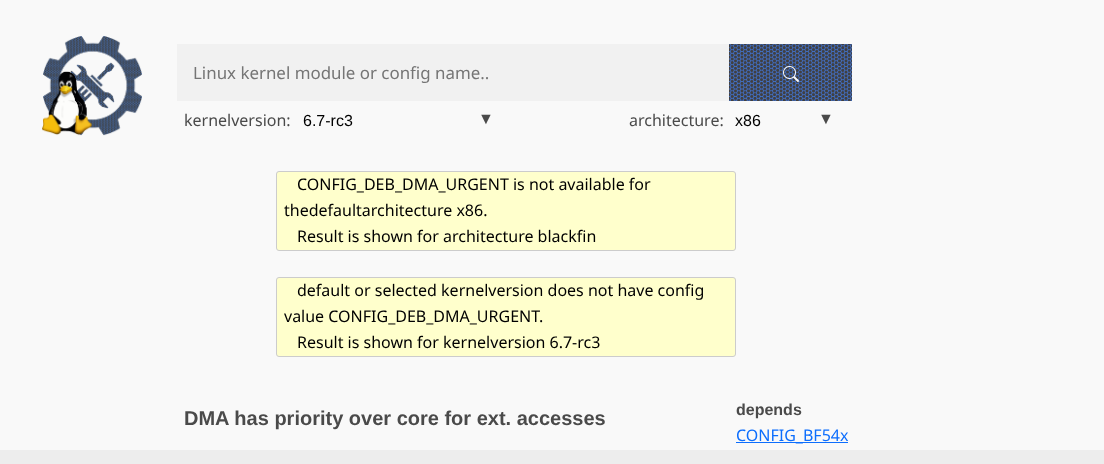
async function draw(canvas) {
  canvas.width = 1104
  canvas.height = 464
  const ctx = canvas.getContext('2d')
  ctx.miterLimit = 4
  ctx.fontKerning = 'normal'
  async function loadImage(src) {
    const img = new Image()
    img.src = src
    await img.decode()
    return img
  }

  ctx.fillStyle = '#f9f9f9'
  ctx.fillRect(0, 0, 1104, 464)
  ctx.drawImage(await loadImage('image0.png'), 42, 36, 100, 100)
  ctx.fillStyle = '#f1f1f1'
  ctx.fillRect(177, 44, 552, 57)
  ctx.font = '16.9px Noto Sans'
  ctx.fillStyle = '#757575'
  ctx.fillText('Linux kernel module or config name..', 193, 79)
  ctx.drawImage(await loadImage('image1.png'), 729, 44, 123, 57)
  ctx.drawImage(await loadImage('image2.png'), 783, 66, 16, 16)
  ctx.font = '16px Noto Sans'
  ctx.fillStyle = '#4a4a4a'
  ctx.fillText('kernelversion:', 184, 126)
  ctx.font = '16px Liberation Sans'
  ctx.fillStyle = '#000'
  ctx.fillText('6.7-rc3', 303, 126)
  ctx.font = 'italic 16px Liberation Sans'
  ctx.fillStyle = '#4a4a4a'
  ctx.fillText('▼', 478, 124)
  ctx.font = '16px Noto Sans'
  ctx.fillText('architecture:', 629, 126)
  ctx.font = '16px Liberation Sans'
  ctx.fillStyle = '#000'
  ctx.fillText('x86', 735, 126)
  ctx.font = 'italic 16px Liberation Sans'
  ctx.fillStyle = '#4a4a4a'
  ctx.fillText('▼', 818, 124)
  ctx.fillStyle = '#ffc'
  ctx.beginPath()
  ctx.roundRect(276.5, 171.5, 459, 79, 2.5)
  ctx.fill()
  ctx.strokeStyle = '#ccc'
  ctx.stroke()
  ctx.font = '16px Noto Sans'
  ctx.fillStyle = '#000'
  ctx.fillText('CONFIG_DEB_DMA_URGENT is not available for', 297, 190)
  ctx.fillText('thedefaultarchitecture x86.', 284, 216)
  ctx.fillText('Result is shown for architecture blackfin', 297, 242)
  ctx.fillStyle = '#ffc'
  ctx.beginPath()
  ctx.roundRect(276.5, 277.5, 459, 79, 2.5)
  ctx.fill()
  ctx.stroke()
  ctx.fillStyle = '#000'
  ctx.fillText('default or selected kernelversion does not have config', 297, 296)
  ctx.fillText('value CONFIG_DEB_DMA_URGENT.', 284, 322)
  ctx.fillText('Result is shown for kernelversion 6.7-rc3', 297, 348)
  ctx.font = 'bold 20px Liberation Sans'
  ctx.fillStyle = '#4a4a4a'
  ctx.fillText('DMA has priority over core for ext. accesses', 184, 425)
  ctx.font = 'bold 16px Liberation Sans'
  ctx.fillText('depends', 736, 415)
  ctx.fillStyle = '#0d6efd'
  ctx.fillRect(736, 442, 112, 1)
  ctx.font = '16px Noto Sans'
  ctx.fillText('CONFIG_BF54x', 736, 441)
  ctx.fillStyle = '#ededed'
  ctx.fillRect(0, 450, 1104, 14)
}

draw(document.querySelector('canvas'))
